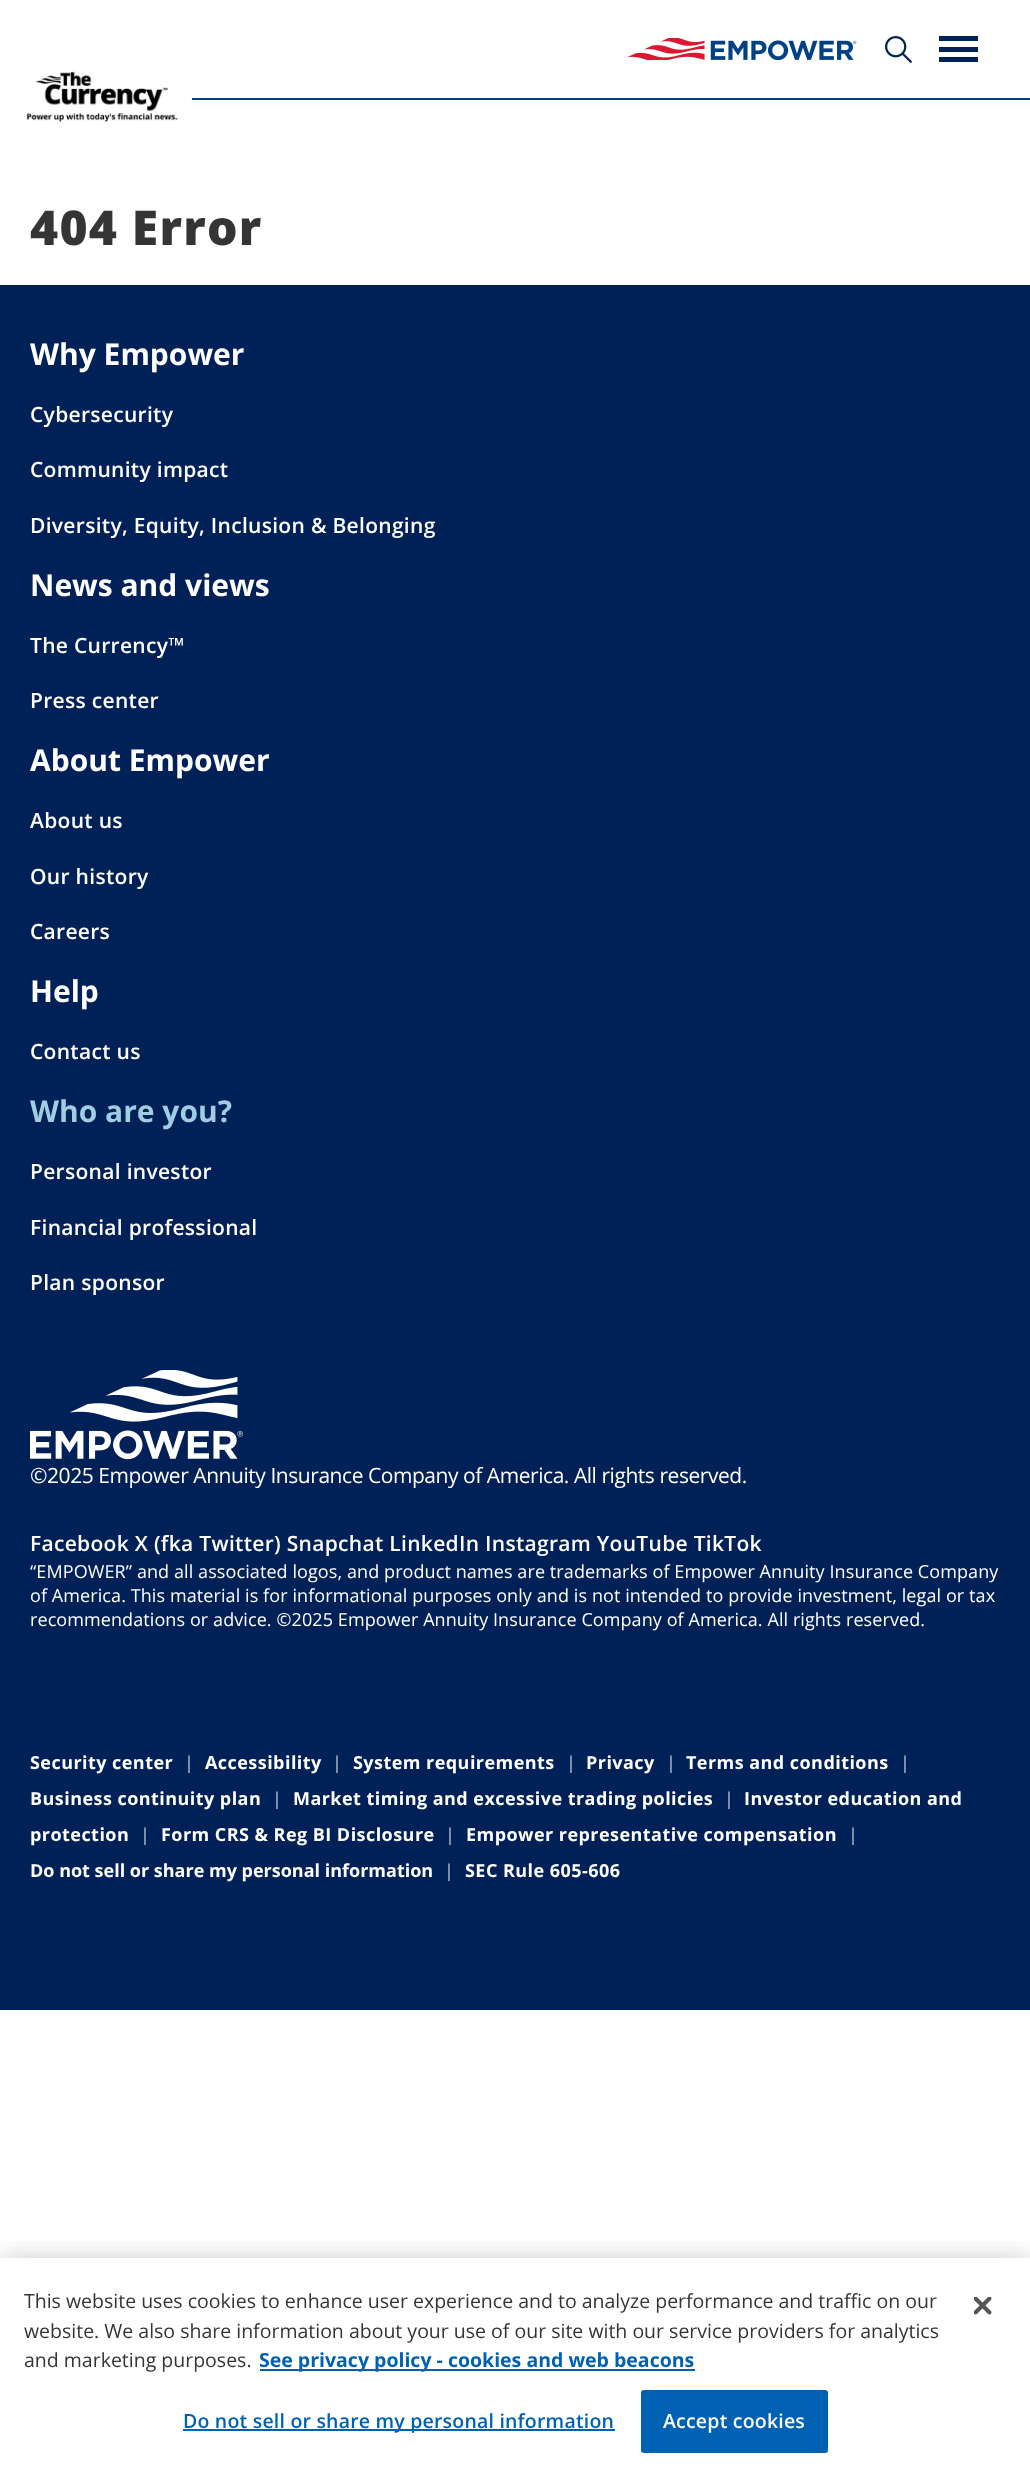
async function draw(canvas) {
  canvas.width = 1030
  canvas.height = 2476
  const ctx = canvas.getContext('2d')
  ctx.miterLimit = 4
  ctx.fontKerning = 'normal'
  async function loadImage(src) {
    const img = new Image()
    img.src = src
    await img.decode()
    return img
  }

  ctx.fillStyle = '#fff'
  ctx.fillRect(0, 0, 1030, 2476)
  ctx.fillStyle = '#004185'
  ctx.fillRect(192, 98, 838, 2)
  ctx.drawImage(await loadImage('image0.png'), 627, 38, 230, 22)
  ctx.drawImage(await loadImage('image1.png'), 885, 36, 27, 27)
  ctx.fillStyle = '#002157'
  ctx.fillRect(939, 36, 39, 5)
  ctx.fillRect(939, 57, 39, 5)
  ctx.fillRect(939, 47, 39, 5)
  ctx.drawImage(await loadImage('image2.png'), 26, 71, 152, 52)
  ctx.letterSpacing = '1.25px'
  ctx.font = '800 48px Open Sans'
  ctx.fillStyle = '#353535'
  ctx.fillText('404 Error', 30, 245)
  ctx.fillStyle = '#002157'
  ctx.fillRect(0, 285, 1030, 1725)
  ctx.letterSpacing = '0px'
  ctx.font = 'bold 30px Open Sans'
  ctx.fillStyle = '#fff'
  ctx.fillText('Why Empower', 30, 365)
  ctx.letterSpacing = '0.3px'
  ctx.font = '600 21px Open Sans'
  ctx.fillText('Cybersecurity', 30, 422)
  ctx.fillText('Community impact', 30, 477)
  ctx.fillText('Diversity, Equity, Inclusion & Belonging', 30, 533)
  ctx.letterSpacing = '0px'
  ctx.font = 'bold 30px Open Sans'
  ctx.fillText('News and views', 30, 596)
  ctx.letterSpacing = '0.3px'
  ctx.font = '600 21px Open Sans'
  ctx.fillText('The Currency™', 30, 653)
  ctx.fillText('Press center', 30, 708)
  ctx.letterSpacing = '0px'
  ctx.font = 'bold 30px Open Sans'
  ctx.fillText('About Empower', 30, 771)
  ctx.letterSpacing = '0.3px'
  ctx.font = '600 21px Open Sans'
  ctx.fillText('About us', 30, 828)
  ctx.fillText('Our history', 30, 884)
  ctx.fillText('Careers', 30, 939)
  ctx.letterSpacing = '0px'
  ctx.font = 'bold 30px Open Sans'
  ctx.fillText('Help', 30, 1002)
  ctx.letterSpacing = '0.3px'
  ctx.font = '600 21px Open Sans'
  ctx.fillText('Contact us', 30, 1059)
  ctx.letterSpacing = '0px'
  ctx.font = 'bold 30px Open Sans'
  ctx.fillStyle = '#9dcee2'
  ctx.fillText('Who are you?', 30, 1122)
  ctx.letterSpacing = '0.3px'
  ctx.font = '600 21px Open Sans'
  ctx.fillStyle = '#fff'
  ctx.fillText('Personal investor', 30, 1179)
  ctx.fillText('Financial professional', 30, 1235)
  ctx.fillText('Plan sponsor', 30, 1290)
  ctx.drawImage(await loadImage('image3.png'), 30, 1370, 213, 90)
  ctx.letterSpacing = '-0.45px'
  ctx.font = '21px Open Sans'
  ctx.fillText('©2025 Empower Annuity Insurance Company of America. All rights reserved.', 30, 1483)
  ctx.letterSpacing = '0.3px'
  ctx.font = '600 21px Open Sans'
  ctx.fillText('Facebook X (fka Twitter) Snapchat LinkedIn Instagram YouTube TikTok', 30, 1551)
  ctx.letterSpacing = '0.09px'
  ctx.font = '18px Open Sans'
  ctx.fillText('“EMPOWER” and all associated logos, and product names are trademarks of Empower Annuity Insurance Company', 30, 1578)
  ctx.fillText('of America. This material is for informational purposes only and is not intended to provide investment, legal or tax', 30, 1602)
  ctx.fillText('recommendations or advice. ©2025 Empower Annuity Insurance Company of America. All rights reserved.', 30, 1626)
  ctx.letterSpacing = '0.45px'
  ctx.font = 'bold 18px Open Sans'
  ctx.fillText('Security center', 30, 1769)
  ctx.fillStyle = '#8090ab'
  ctx.fillText('|', 184, 1769)
  ctx.fillStyle = '#fff'
  ctx.fillText('Accessibility', 205, 1769)
  ctx.fillStyle = '#8090ab'
  ctx.fillText('|', 332, 1769)
  ctx.fillStyle = '#fff'
  ctx.fillText('System requirements', 353, 1769)
  ctx.fillStyle = '#8090ab'
  ctx.fillText('|', 566, 1769)
  ctx.fillStyle = '#fff'
  ctx.fillText('Privacy', 586, 1769)
  ctx.fillStyle = '#8090ab'
  ctx.fillText('|', 666, 1769)
  ctx.fillStyle = '#fff'
  ctx.fillText('Terms and conditions', 686, 1769)
  ctx.fillStyle = '#8090ab'
  ctx.fillText('|', 900, 1769)
  ctx.fillStyle = '#fff'
  ctx.fillText('Business continuity plan', 30, 1805)
  ctx.fillStyle = '#8090ab'
  ctx.fillText('|', 272, 1805)
  ctx.fillStyle = '#fff'
  ctx.fillText('Market timing and excessive trading policies', 293, 1805)
  ctx.fillStyle = '#8090ab'
  ctx.fillText('|', 724, 1805)
  ctx.fillStyle = '#fff'
  ctx.fillText('Investor education and', 744, 1805)
  ctx.fillText('protection', 30, 1841)
  ctx.fillStyle = '#8090ab'
  ctx.fillText('|', 140, 1841)
  ctx.fillStyle = '#fff'
  ctx.fillText('Form CRS & Reg BI Disclosure', 161, 1841)
  ctx.fillStyle = '#8090ab'
  ctx.fillText('|', 445, 1841)
  ctx.fillStyle = '#fff'
  ctx.fillText('Empower representative compensation', 466, 1841)
  ctx.fillStyle = '#8090ab'
  ctx.fillText('|', 848, 1841)
  ctx.letterSpacing = '0px'
  ctx.fillStyle = '#fff'
  ctx.fillText('Do not sell or share my personal information', 30, 1877)
  ctx.letterSpacing = '0.45px'
  ctx.fillStyle = '#8090ab'
  ctx.fillText('|', 444, 1877)
  ctx.fillStyle = '#fff'
  ctx.fillText('SEC Rule 605-606', 465, 1877)
  ctx.save()
  ctx.beginPath()
  ctx.rect(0, 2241, 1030, 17)
  ctx.clip()
  ctx.fillStyle = '#00000033'
  ctx.filter = 'blur(13.5px)'
  ctx.beginPath()
  ctx.rect(0, 2258, 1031, 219)
  ctx.fill()
  ctx.filter = 'none'
  ctx.restore()
  ctx.letterSpacing = '0px'
  ctx.font = '19.5px Open Sans'
  ctx.fillStyle = '#353535'
  ctx.fillText('This website uses cookies to enhance user experience and to analyze performance and traffic on our', 24, 2308)
  ctx.fillText('website. We also share information about your use of our site with our service providers for analytics', 24, 2338)
  ctx.fillText('and marketing purposes.', 24, 2367)
  ctx.fillStyle = '#0061b3'
  ctx.fillRect(260, 2369, 435, 2)
  ctx.font = 'bold 19.5px Open Sans'
  ctx.fillText('See privacy policy - cookies and web beacons', 259, 2367)
  ctx.fillRect(183, 2429, 432, 2)
  ctx.letterSpacing = '0.2px'
  ctx.font = '600 19.5px Open Sans'
  ctx.fillText('Do not sell or share my personal information', 183, 2428)
  ctx.beginPath()
  ctx.roundRect(642, 2391, 185, 61, 2)
  ctx.fill()
  ctx.strokeStyle = '#0061b3'
  ctx.lineWidth = 2
  ctx.stroke()
  ctx.fillStyle = '#fff'
  ctx.fillText('Accept cookies', 663, 2428)
  ctx.drawImage(await loadImage('image4.png'), 974, 2297, 18, 18)
}

draw(document.querySelector('canvas'))
